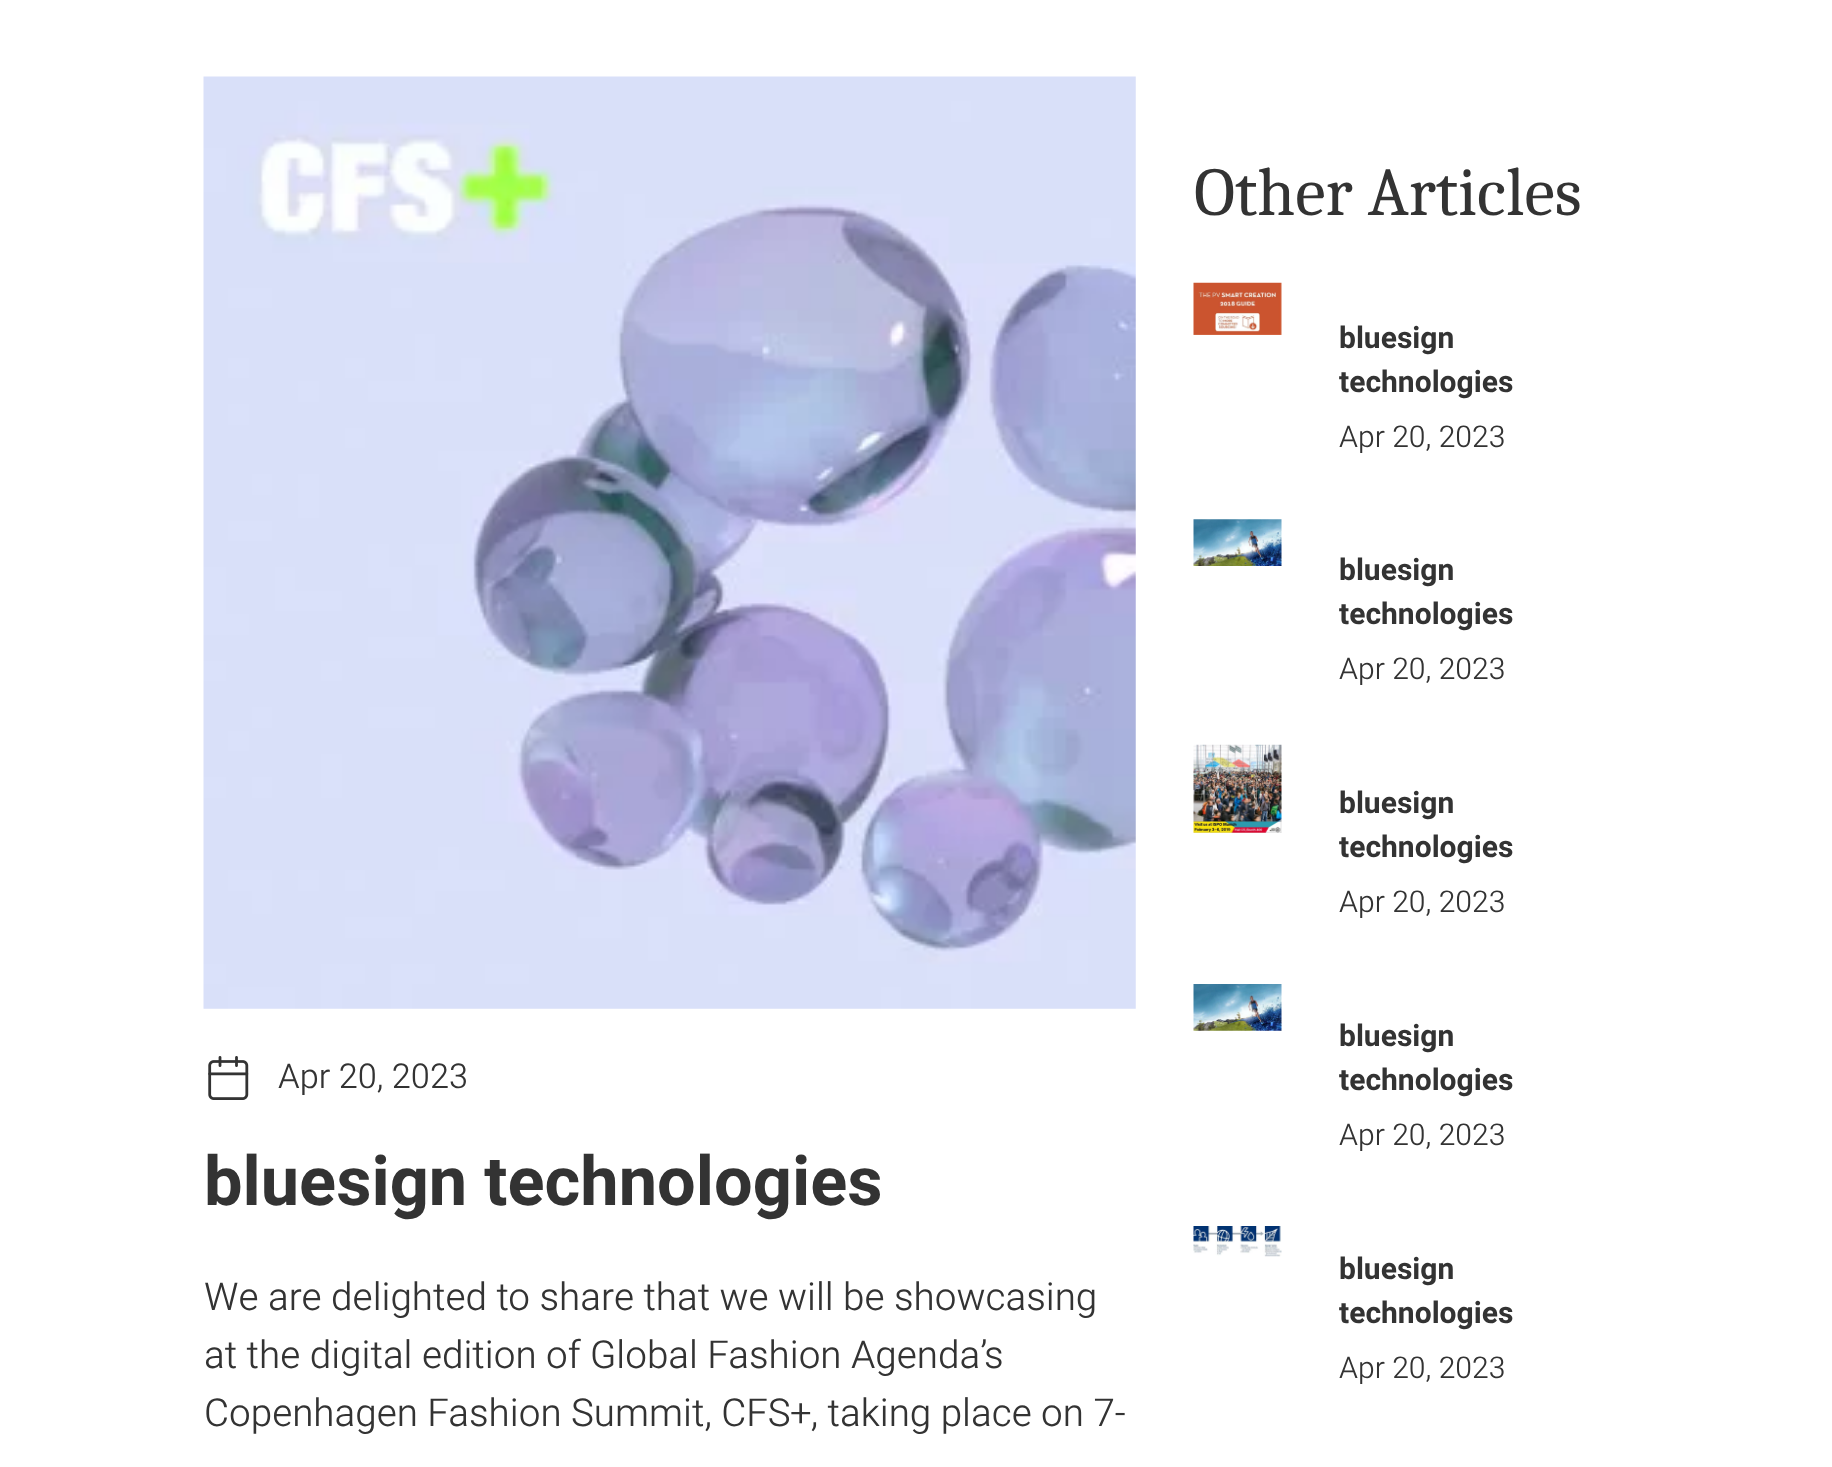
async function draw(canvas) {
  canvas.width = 1832
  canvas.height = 1467
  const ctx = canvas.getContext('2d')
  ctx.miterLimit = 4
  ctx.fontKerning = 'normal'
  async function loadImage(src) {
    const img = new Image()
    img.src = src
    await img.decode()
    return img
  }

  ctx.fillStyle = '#fff'
  ctx.fillRect(0, 0, 1832, 1467)
  ctx.drawImage(await loadImage('image0.png'), 203, 76, 933, 933)
  ctx.drawImage(await loadImage('image1.png'), 208, 1056, 41, 44)
  ctx.font = '300 34.25px Heebo'
  ctx.fillStyle = '#333'
  ctx.fillText('Apr 20, 2023', 278, 1088)
  ctx.font = 'bold 68.5px Heebo'
  ctx.fillText('bluesign technologies', 204, 1205)
  ctx.font = '300 38.5px Heebo'
  ctx.fillText('We are delighted to share that we will be showcasing', 204, 1310)
  ctx.fillText('at the digital edition of Global Fashion Agenda’s', 204, 1368)
  ctx.fillText('Copenhagen Fashion Summit, CFS+, taking place on 7-', 204, 1426)
  ctx.font = '68.5px Caladea'
  ctx.fillText('Other Articles', 1194, 215)
  ctx.drawImage(await loadImage('image2.png'), 1193, 282, 89, 53)
  ctx.font = 'bold 30px Heebo'
  ctx.fillText('bluesign', 1339, 348)
  ctx.fillText('technologies', 1339, 392)
  ctx.font = '300 30px Heebo'
  ctx.fillText('Apr 20, 2023', 1339, 447)
  ctx.drawImage(await loadImage('image3.png'), 1193, 519, 89, 47)
  ctx.font = 'bold 30px Heebo'
  ctx.fillText('bluesign', 1339, 580)
  ctx.fillText('technologies', 1339, 624)
  ctx.font = '300 30px Heebo'
  ctx.fillText('Apr 20, 2023', 1339, 679)
  ctx.drawImage(await loadImage('image4.png'), 1193, 744, 89, 89)
  ctx.font = 'bold 30px Heebo'
  ctx.fillText('bluesign', 1339, 813)
  ctx.fillText('technologies', 1339, 857)
  ctx.font = '300 30px Heebo'
  ctx.fillText('Apr 20, 2023', 1339, 912)
  ctx.drawImage(await loadImage('image5.png'), 1193, 984, 89, 47)
  ctx.font = 'bold 30px Heebo'
  ctx.fillText('bluesign', 1339, 1046)
  ctx.fillText('technologies', 1339, 1090)
  ctx.font = '300 30px Heebo'
  ctx.fillText('Apr 20, 2023', 1339, 1145)
  ctx.drawImage(await loadImage('image6.png'), 1193, 1226, 89, 31)
  ctx.font = 'bold 30px Heebo'
  ctx.fillText('bluesign', 1339, 1279)
  ctx.fillText('technologies', 1339, 1323)
  ctx.font = '300 30px Heebo'
  ctx.fillText('Apr 20, 2023', 1339, 1378)
}

draw(document.querySelector('canvas'))
